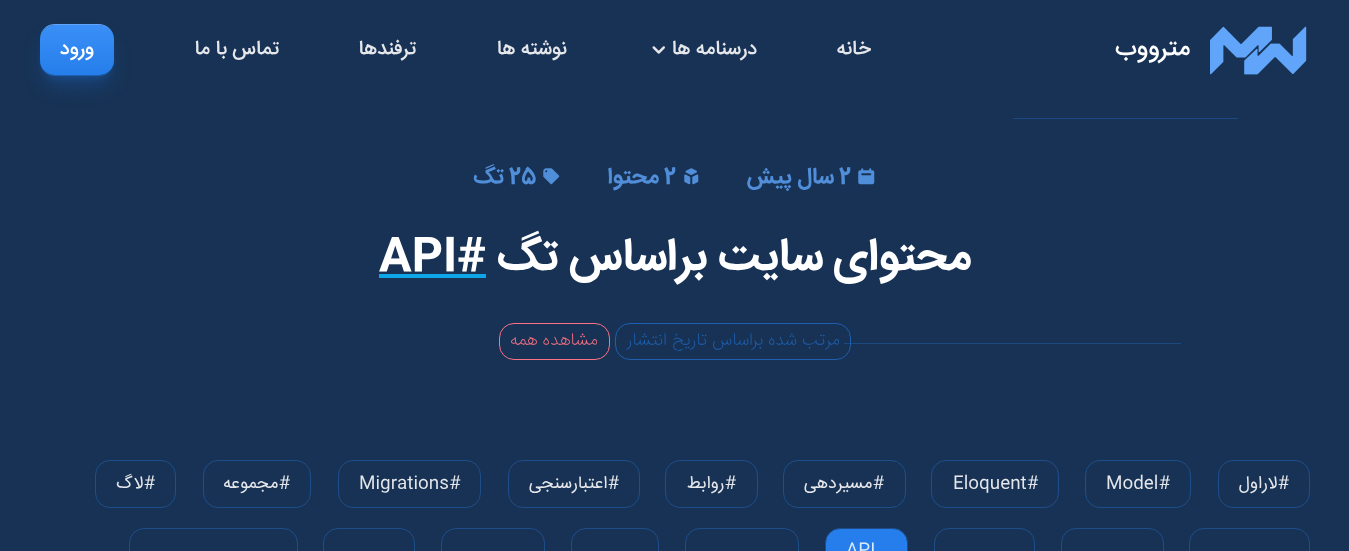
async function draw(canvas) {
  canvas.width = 1349
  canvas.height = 551
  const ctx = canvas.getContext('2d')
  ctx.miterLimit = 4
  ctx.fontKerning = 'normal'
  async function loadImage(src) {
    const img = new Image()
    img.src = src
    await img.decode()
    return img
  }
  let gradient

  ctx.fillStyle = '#173254'
  ctx.fillRect(0, 0, 1349, 551)
  ctx.drawImage(await loadImage('image0.png'), 1210, 26, 97, 49)
  ctx.direction = 'rtl'
  ctx.font = '500 25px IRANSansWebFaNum'
  ctx.fillStyle = '#fff'
  ctx.fillText('مترووب', 1190, 55)
  ctx.font = '500 20px IRANSansWebFaNum'
  ctx.fillStyle = '#e5e7eb'
  ctx.fillText('خانه', 871, 54)
  ctx.fillText('درسنامه ها', 757, 54)
  ctx.drawImage(await loadImage('image1.png'), 652, 46, 13, 8)
  ctx.fillText('نوشته ها', 567, 54)
  ctx.fillText('ترفندها', 416, 54)
  ctx.fillText('تماس با ما', 279, 54)
  ctx.fillStyle = '#1d71d84d'
  ctx.filter = 'blur(4px)'
  ctx.beginPath()
  ctx.roundRect(45, 34, 64, 42, 10)
  ctx.fill()
  ctx.filter = 'none'
  ctx.filter = 'blur(9.5px)'
  ctx.beginPath()
  ctx.roundRect(44, 40, 66, 45, 11)
  ctx.fill()
  ctx.filter = 'none'
  gradient = ctx.createLinearGradient(77, 25, 77, 75)
  gradient.addColorStop(0, '#3b8ff6')
  gradient.addColorStop(1, '#257eeb')
  ctx.fillStyle = gradient
  ctx.beginPath()
  ctx.moveTo(55, 25)
  ctx.lineTo(99, 25)
  ctx.bezierCurveTo(107, 25, 114, 31, 114, 39)
  ctx.lineTo(114, 61)
  ctx.bezierCurveTo(114, 69, 107, 75, 99, 75)
  ctx.lineTo(55, 75)
  ctx.bezierCurveTo(47, 75, 40, 69, 40, 61)
  ctx.lineTo(40, 39)
  ctx.bezierCurveTo(40, 31, 47, 25, 55, 25)
  ctx.closePath()
  ctx.fill()
  ctx.fillStyle = '#60a5fa'
  ctx.beginPath()
  ctx.moveTo(55, 24)
  ctx.lineTo(99, 24)
  ctx.bezierCurveTo(106, 24, 112, 29, 114, 36)
  ctx.bezierCurveTo(112, 30, 106, 25, 99, 25)
  ctx.lineTo(55, 25)
  ctx.bezierCurveTo(47, 25, 40, 31, 40, 39)
  ctx.bezierCurveTo(40, 30, 47, 24, 55, 24)
  ctx.closePath()
  ctx.fill()
  ctx.fillStyle = '#1e5faf'
  ctx.beginPath()
  ctx.moveTo(114, 64)
  ctx.bezierCurveTo(112, 71, 106, 76, 99, 76)
  ctx.lineTo(55, 76)
  ctx.bezierCurveTo(47, 76, 40, 70, 40, 61)
  ctx.bezierCurveTo(40, 69, 47, 75, 55, 75)
  ctx.lineTo(99, 75)
  ctx.bezierCurveTo(106, 75, 112, 70, 114, 64)
  ctx.closePath()
  ctx.fill()
  ctx.fillStyle = '#fff'
  ctx.fillText('ورود', 94, 54)
  ctx.fillStyle = '#1b4981'
  ctx.fillRect(1013, 118, 225, 1)
  ctx.fillRect(844, 343, 337, 1)
  ctx.drawImage(await loadImage('image2.png'), 858, 168, 17, 17)
  ctx.direction = 'ltr'
  ctx.font = 'bold 22.5px IRANSansWebFaNum'
  ctx.fillStyle = '#518ed9'
  ctx.fillText('2', 839, 183)
  ctx.direction = 'rtl'
  ctx.fillText('سال پیش', 834, 183)
  ctx.drawImage(await loadImage('image3.png'), 684, 168, 15, 17)
  ctx.direction = 'ltr'
  ctx.fillText('2', 664, 183)
  ctx.direction = 'rtl'
  ctx.fillText('محتوا', 659, 183)
  ctx.drawImage(await loadImage('image4.png'), 543, 168, 17, 17)
  ctx.direction = 'ltr'
  ctx.fillText('25', 509, 183)
  ctx.direction = 'rtl'
  ctx.fillText('تگ', 504, 183)
  ctx.font = 'bold 45px IRANSansWebFaNum'
  ctx.fillStyle = '#fff'
  ctx.fillText('محتوای سایت براساس تگ', 971, 269)
  ctx.direction = 'ltr'
  ctx.fillText('API#', 379, 269)
  ctx.fillStyle = '#0ea5e9'
  ctx.fillRect(379, 274, 107, 4)
  ctx.beginPath()
  ctx.roundRect(615.5, 323.5, 235, 36, 14.5)
  ctx.strokeStyle = '#1e5faf'
  ctx.stroke()
  ctx.direction = 'rtl'
  ctx.font = '200 17.5px IRANSansWebFaNum'
  ctx.fillStyle = '#1e5faf'
  ctx.fillText('مرتب شده براساس تاریخ انتشار', 840, 345)
  ctx.beginPath()
  ctx.roundRect(499.5, 323.5, 110, 36, 14.5)
  ctx.strokeStyle = '#fb7185'
  ctx.stroke()
  ctx.fillStyle = '#fb7185'
  ctx.fillText('مشاهده همه', 598, 345)
  ctx.beginPath()
  ctx.roundRect(1218.5, 460.5, 91, 47, 14.5)
  ctx.strokeStyle = '#1e4e8a'
  ctx.stroke()
  ctx.font = '17.5px IRANSansWebFaNum'
  ctx.fillStyle = '#e5e7eb'
  ctx.fillText('#لاراول', 1289, 488)
  ctx.beginPath()
  ctx.roundRect(1085.5, 460.5, 105, 47, 14.5)
  ctx.stroke()
  ctx.direction = 'ltr'
  ctx.fillText('Model#', 1106, 488)
  ctx.beginPath()
  ctx.roundRect(931.5, 460.5, 127, 47, 14.5)
  ctx.stroke()
  ctx.fillText('Eloquent#', 953, 488)
  ctx.beginPath()
  ctx.roundRect(783.5, 460.5, 122, 47, 14.5)
  ctx.stroke()
  ctx.direction = 'rtl'
  ctx.fillText('#مسیردهی', 884, 488)
  ctx.beginPath()
  ctx.roundRect(665.5, 460.5, 92, 47, 14.5)
  ctx.stroke()
  ctx.fillText('#روابط', 736, 488)
  ctx.beginPath()
  ctx.roundRect(508.5, 460.5, 131, 47, 14.5)
  ctx.stroke()
  ctx.fillText('#اعتبارسنجی', 619, 488)
  ctx.beginPath()
  ctx.roundRect(338.5, 460.5, 142, 47, 14.5)
  ctx.stroke()
  ctx.direction = 'ltr'
  ctx.fillText('Migrations#', 359, 488)
  ctx.beginPath()
  ctx.roundRect(203.5, 460.5, 107, 47, 14.5)
  ctx.stroke()
  ctx.direction = 'rtl'
  ctx.fillText('#مجموعه', 290, 488)
  ctx.beginPath()
  ctx.roundRect(95.5, 460.5, 80, 47, 14.5)
  ctx.stroke()
  ctx.fillText('#لاگ', 155, 488)
  ctx.beginPath()
  ctx.roundRect(1189.5, 528.5, 120, 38, 14.5)
  ctx.stroke()
  ctx.beginPath()
  ctx.roundRect(1061.5, 528.5, 102, 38, 14.5)
  ctx.stroke()
  ctx.beginPath()
  ctx.roundRect(934.5, 528.5, 100, 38, 14.5)
  ctx.stroke()
  ctx.fillStyle = '#257eeb'
  ctx.beginPath()
  ctx.roundRect(825.5, 528.5, 82, 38, 14.5)
  ctx.fill()
  ctx.stroke()
  ctx.direction = 'ltr'
  ctx.fillStyle = '#dbebfe'
  ctx.fillText('API', 846, 555)
  ctx.beginPath()
  ctx.roundRect(685.5, 528.5, 113, 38, 14.5)
  ctx.stroke()
  ctx.beginPath()
  ctx.roundRect(571.5, 528.5, 87, 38, 14.5)
  ctx.stroke()
  ctx.beginPath()
  ctx.roundRect(441.5, 528.5, 103, 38, 14.5)
  ctx.stroke()
  ctx.beginPath()
  ctx.roundRect(323.5, 528.5, 91, 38, 14.5)
  ctx.stroke()
  ctx.beginPath()
  ctx.roundRect(129.5, 528.5, 168, 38, 14.5)
  ctx.stroke()
}

draw(document.querySelector('canvas'))
